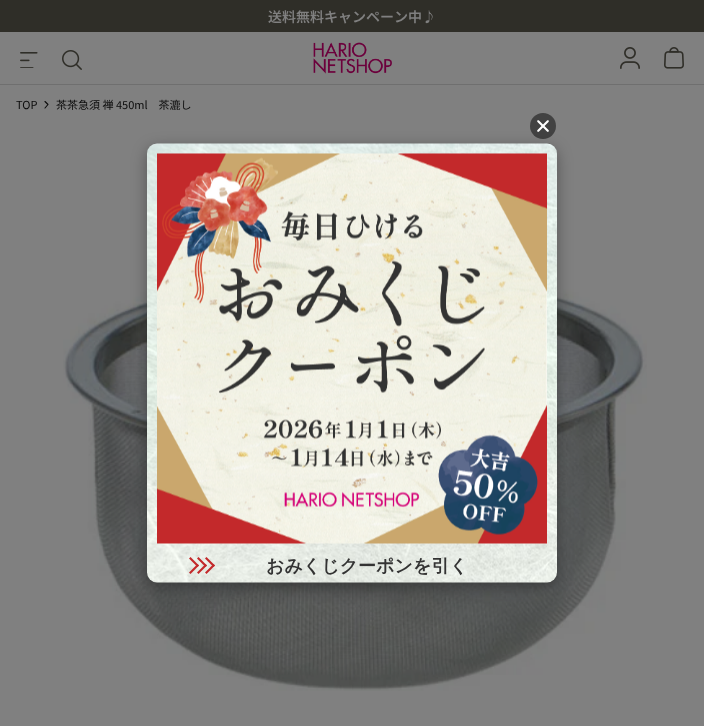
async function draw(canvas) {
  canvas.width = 704
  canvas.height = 726
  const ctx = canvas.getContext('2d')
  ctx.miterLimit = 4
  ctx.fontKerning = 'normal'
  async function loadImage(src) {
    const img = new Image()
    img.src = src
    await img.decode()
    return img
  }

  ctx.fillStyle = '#808080'
  ctx.fillRect(0, 0, 704, 726)
  ctx.fillStyle = '#2f2e28'
  ctx.fillRect(0, 0, 704, 32)
  ctx.font = '600 14px Noto Sans JP'
  ctx.fillStyle = '#808080'
  ctx.fillText('送料無料キャンペーン中♪', 268, 22)
  ctx.fillStyle = '#6f6f6f'
  ctx.fillRect(0, 84, 704, 1)
  ctx.drawImage(await loadImage('image0.png'), 20, 52, 18, 16)
  ctx.drawImage(await loadImage('image1.png'), 62, 50, 20, 20)
  ctx.drawImage(await loadImage('image2.png'), 313, 42, 79, 32)
  ctx.drawImage(await loadImage('image3.png'), 620, 47, 20, 22)
  ctx.drawImage(await loadImage('image4.png'), 664, 47, 20, 22)
  ctx.font = '11px Noto Sans JP'
  ctx.fillStyle = '#0c0c0c'
  ctx.fillText('TOP', 16, 109)
  ctx.beginPath()
  ctx.moveTo(45, 108)
  ctx.lineTo(48, 104.5)
  ctx.lineTo(45, 101.5)
  ctx.strokeStyle = '#0c0c0c'
  ctx.lineWidth = 1.1
  ctx.lineCap = 'round'
  ctx.lineJoin = 'round'
  ctx.stroke()
  ctx.fillText('茶茶急須 禅 450ml　茶漉し', 56, 109)
  ctx.drawImage(await loadImage('image5.png'), 63, 270, 584, 421)
  ctx.fillStyle = '#424242'
  ctx.beginPath()
  ctx.arc(543, 126, 13, 0, 2 * Math.PI)
  ctx.fill()
  ctx.fillStyle = '#fff'
  ctx.beginPath()
  ctx.moveTo(548.5, 120.5)
  ctx.bezierCurveTo(549, 120.5, 549, 121.5, 548.5, 122)
  ctx.lineTo(539, 131.5)
  ctx.bezierCurveTo(538.5, 132, 537.5, 132, 537.5, 131.5)
  ctx.bezierCurveTo(537, 131.5, 537, 130.5, 537.5, 130)
  ctx.lineTo(547, 120.5)
  ctx.bezierCurveTo(547.5, 120, 548.5, 120, 548.5, 120.5)
  ctx.closePath()
  ctx.fill()
  ctx.beginPath()
  ctx.moveTo(537.5, 120.5)
  ctx.bezierCurveTo(537.5, 120, 538.5, 120, 539, 120.5)
  ctx.lineTo(548.5, 130)
  ctx.bezierCurveTo(549, 130.5, 549, 131.5, 548.5, 131.5)
  ctx.bezierCurveTo(548.5, 132, 547.5, 132, 547, 131.5)
  ctx.lineTo(537.5, 122)
  ctx.bezierCurveTo(537, 121.5, 537, 120.5, 537.5, 120.5)
  ctx.closePath()
  ctx.fill()
  ctx.fillStyle = '#00000059'
  ctx.filter = 'blur(7.5px)'
  ctx.beginPath()
  ctx.roundRect(147, 148, 410, 439, 10)
  ctx.fill()
  ctx.filter = 'none'
  ctx.drawImage(await loadImage('image6.png'), 147, 143, 410, 440)
  ctx.drawImage(await loadImage('image7.png'), 157, 153, 390, 391)
  ctx.fillStyle = '#c3292b'
  ctx.beginPath()
  ctx.moveTo(189, 558.5)
  ctx.lineTo(190.5, 557)
  ctx.lineTo(199, 565.5)
  ctx.lineTo(197.5, 567)
  ctx.closePath()
  ctx.fill()
  ctx.beginPath()
  ctx.moveTo(189, 572.5)
  ctx.lineTo(197.5, 564)
  ctx.lineTo(199, 565.5)
  ctx.lineTo(190.5, 574)
  ctx.closePath()
  ctx.fill()
  ctx.beginPath()
  ctx.moveTo(197, 558.5)
  ctx.lineTo(198.5, 557)
  ctx.lineTo(207, 565.5)
  ctx.lineTo(205.5, 567)
  ctx.closePath()
  ctx.fill()
  ctx.beginPath()
  ctx.moveTo(197, 572.5)
  ctx.lineTo(205.5, 564)
  ctx.lineTo(207, 565.5)
  ctx.lineTo(198.5, 574)
  ctx.closePath()
  ctx.fill()
  ctx.beginPath()
  ctx.moveTo(205, 558.5)
  ctx.lineTo(206.5, 557)
  ctx.lineTo(215, 565.5)
  ctx.lineTo(213.5, 567)
  ctx.closePath()
  ctx.fill()
  ctx.beginPath()
  ctx.moveTo(205, 572.5)
  ctx.lineTo(213.5, 564)
  ctx.lineTo(215, 565.5)
  ctx.lineTo(206.5, 574)
  ctx.closePath()
  ctx.fill()
  ctx.font = 'bold 18px WenQuanYi Zen Hei'
  ctx.fillStyle = '#333'
  ctx.fillText('おみくじクーポンを引く', 266, 572)
}

draw(document.querySelector('canvas'))
